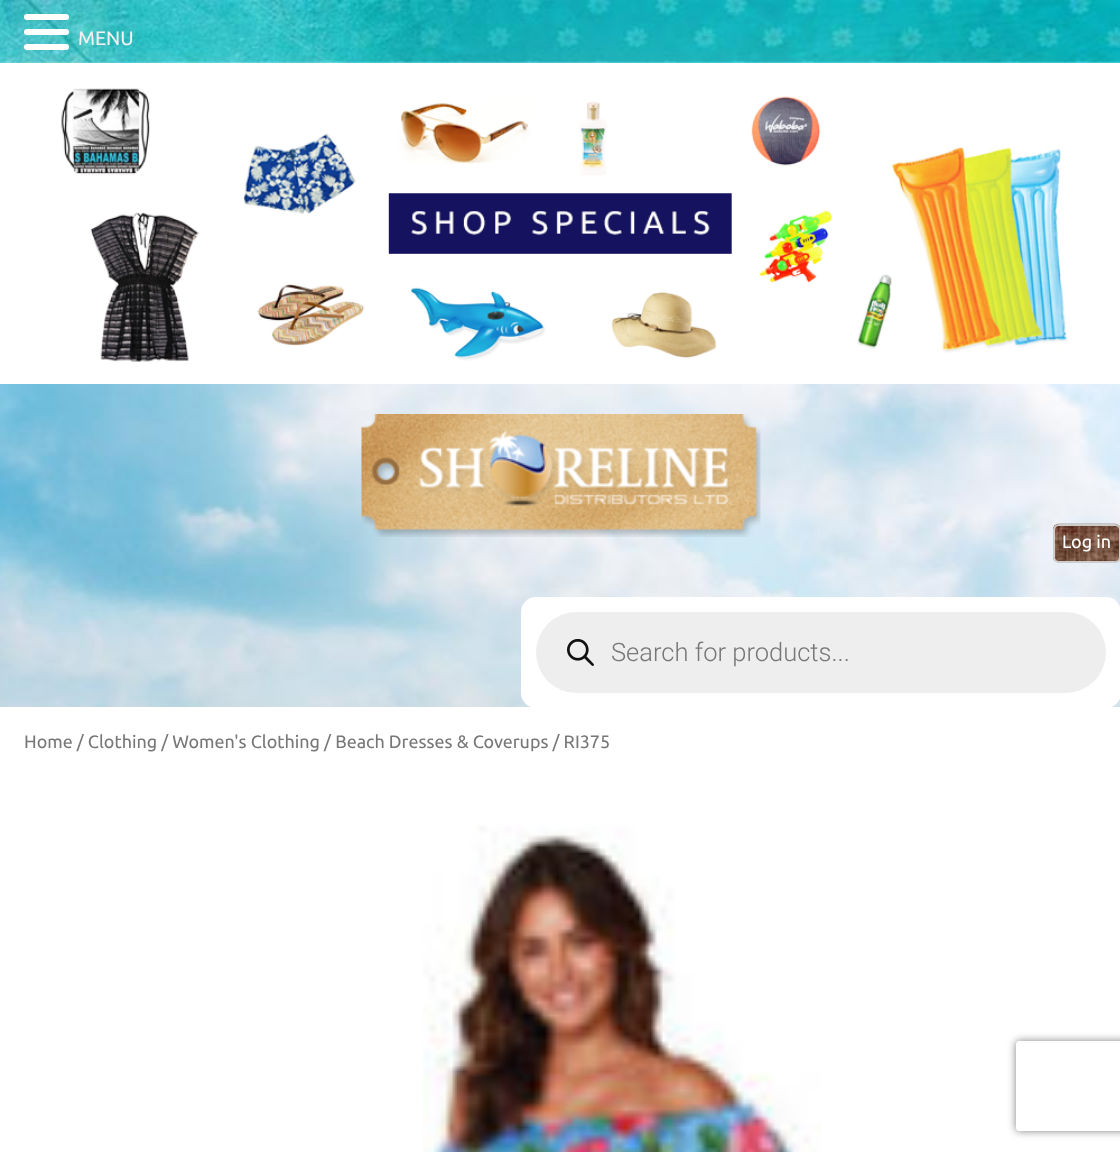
async function draw(canvas) {
  canvas.width = 1120
  canvas.height = 1152
  const ctx = canvas.getContext('2d')
  ctx.miterLimit = 4
  ctx.fontKerning = 'normal'
  async function loadImage(src) {
    const img = new Image()
    img.src = src
    await img.decode()
    return img
  }

  ctx.fillStyle = '#fff'
  ctx.fillRect(0, 0, 1120, 1152)
  ctx.drawImage(await loadImage('image0.png'), 0, 62, 1120, 645)
  ctx.drawImage(await loadImage('image1.png'), 0, 0, 1120, 63)
  ctx.beginPath()
  ctx.roundRect(24, 14, 45, 6, 3)
  ctx.fill()
  ctx.beginPath()
  ctx.roundRect(24, 29, 45, 6, 3)
  ctx.fill()
  ctx.beginPath()
  ctx.roundRect(24, 44, 45, 6, 3)
  ctx.fill()
  ctx.font = '19.5px Ubuntu'
  ctx.fillStyle = '#f2f2f2'
  ctx.fillText('MENU', 78, 45)
  ctx.drawImage(await loadImage('image2.png'), 0, 63, 1120, 321)
  ctx.drawImage(await loadImage('image3.png'), 361, 414, 400, 123)
  ctx.drawImage(await loadImage('image4.png'), 1053, 523, 67, 40)
  ctx.beginPath()
  ctx.roundRect(1054, 525, 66, 37, 5)
  ctx.strokeStyle = '#ccc'
  ctx.lineWidth = 2
  ctx.stroke()
  ctx.font = '18px Ubuntu'
  ctx.fillStyle = '#fff'
  ctx.fillText('Log in', 1062, 548)
  ctx.beginPath()
  ctx.roundRect(521, 597, 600, 111, 15)
  ctx.fill()
  ctx.fillStyle = '#eee'
  ctx.beginPath()
  ctx.roundRect(536, 612, 570, 81, 40.5)
  ctx.fill()
  ctx.drawImage(await loadImage('image5.png'), 567, 639, 27, 27)
  ctx.font = '300 25.5px Roboto'
  ctx.fillStyle = '#777'
  ctx.fillText('Search for products...', 611, 661)
  ctx.font = '17.95px Ubuntu'
  ctx.fillText('Home / Clothing / Women\'s Clothing / Beach Dresses & Coverups / RI375', 24, 748)
  ctx.drawImage(await loadImage('image6.png'), 422, 825, 400, 327)
  ctx.save()
  ctx.beginPath()
  ctx.moveTo(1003, 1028)
  ctx.lineTo(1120, 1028)
  ctx.lineTo(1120, 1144)
  ctx.lineTo(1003, 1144)
  ctx.closePath()
  ctx.moveTo(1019, 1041)
  ctx.lineTo(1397, 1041)
  ctx.bezierCurveTo(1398.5, 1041, 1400, 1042.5, 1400, 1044)
  ctx.lineTo(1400, 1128)
  ctx.bezierCurveTo(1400, 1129.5, 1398.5, 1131, 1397, 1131)
  ctx.lineTo(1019, 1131)
  ctx.bezierCurveTo(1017.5, 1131, 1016, 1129.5, 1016, 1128)
  ctx.lineTo(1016, 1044)
  ctx.bezierCurveTo(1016, 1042.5, 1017.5, 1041, 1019, 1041)
  ctx.closePath()
  ctx.clip('evenodd')
  ctx.fillStyle = '#808080'
  ctx.filter = 'blur(4px)'
  ctx.beginPath()
  ctx.roundRect(1016, 1041, 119, 90, 3)
  ctx.fill()
  ctx.filter = 'none'
  ctx.restore()
}

draw(document.querySelector('canvas'))
